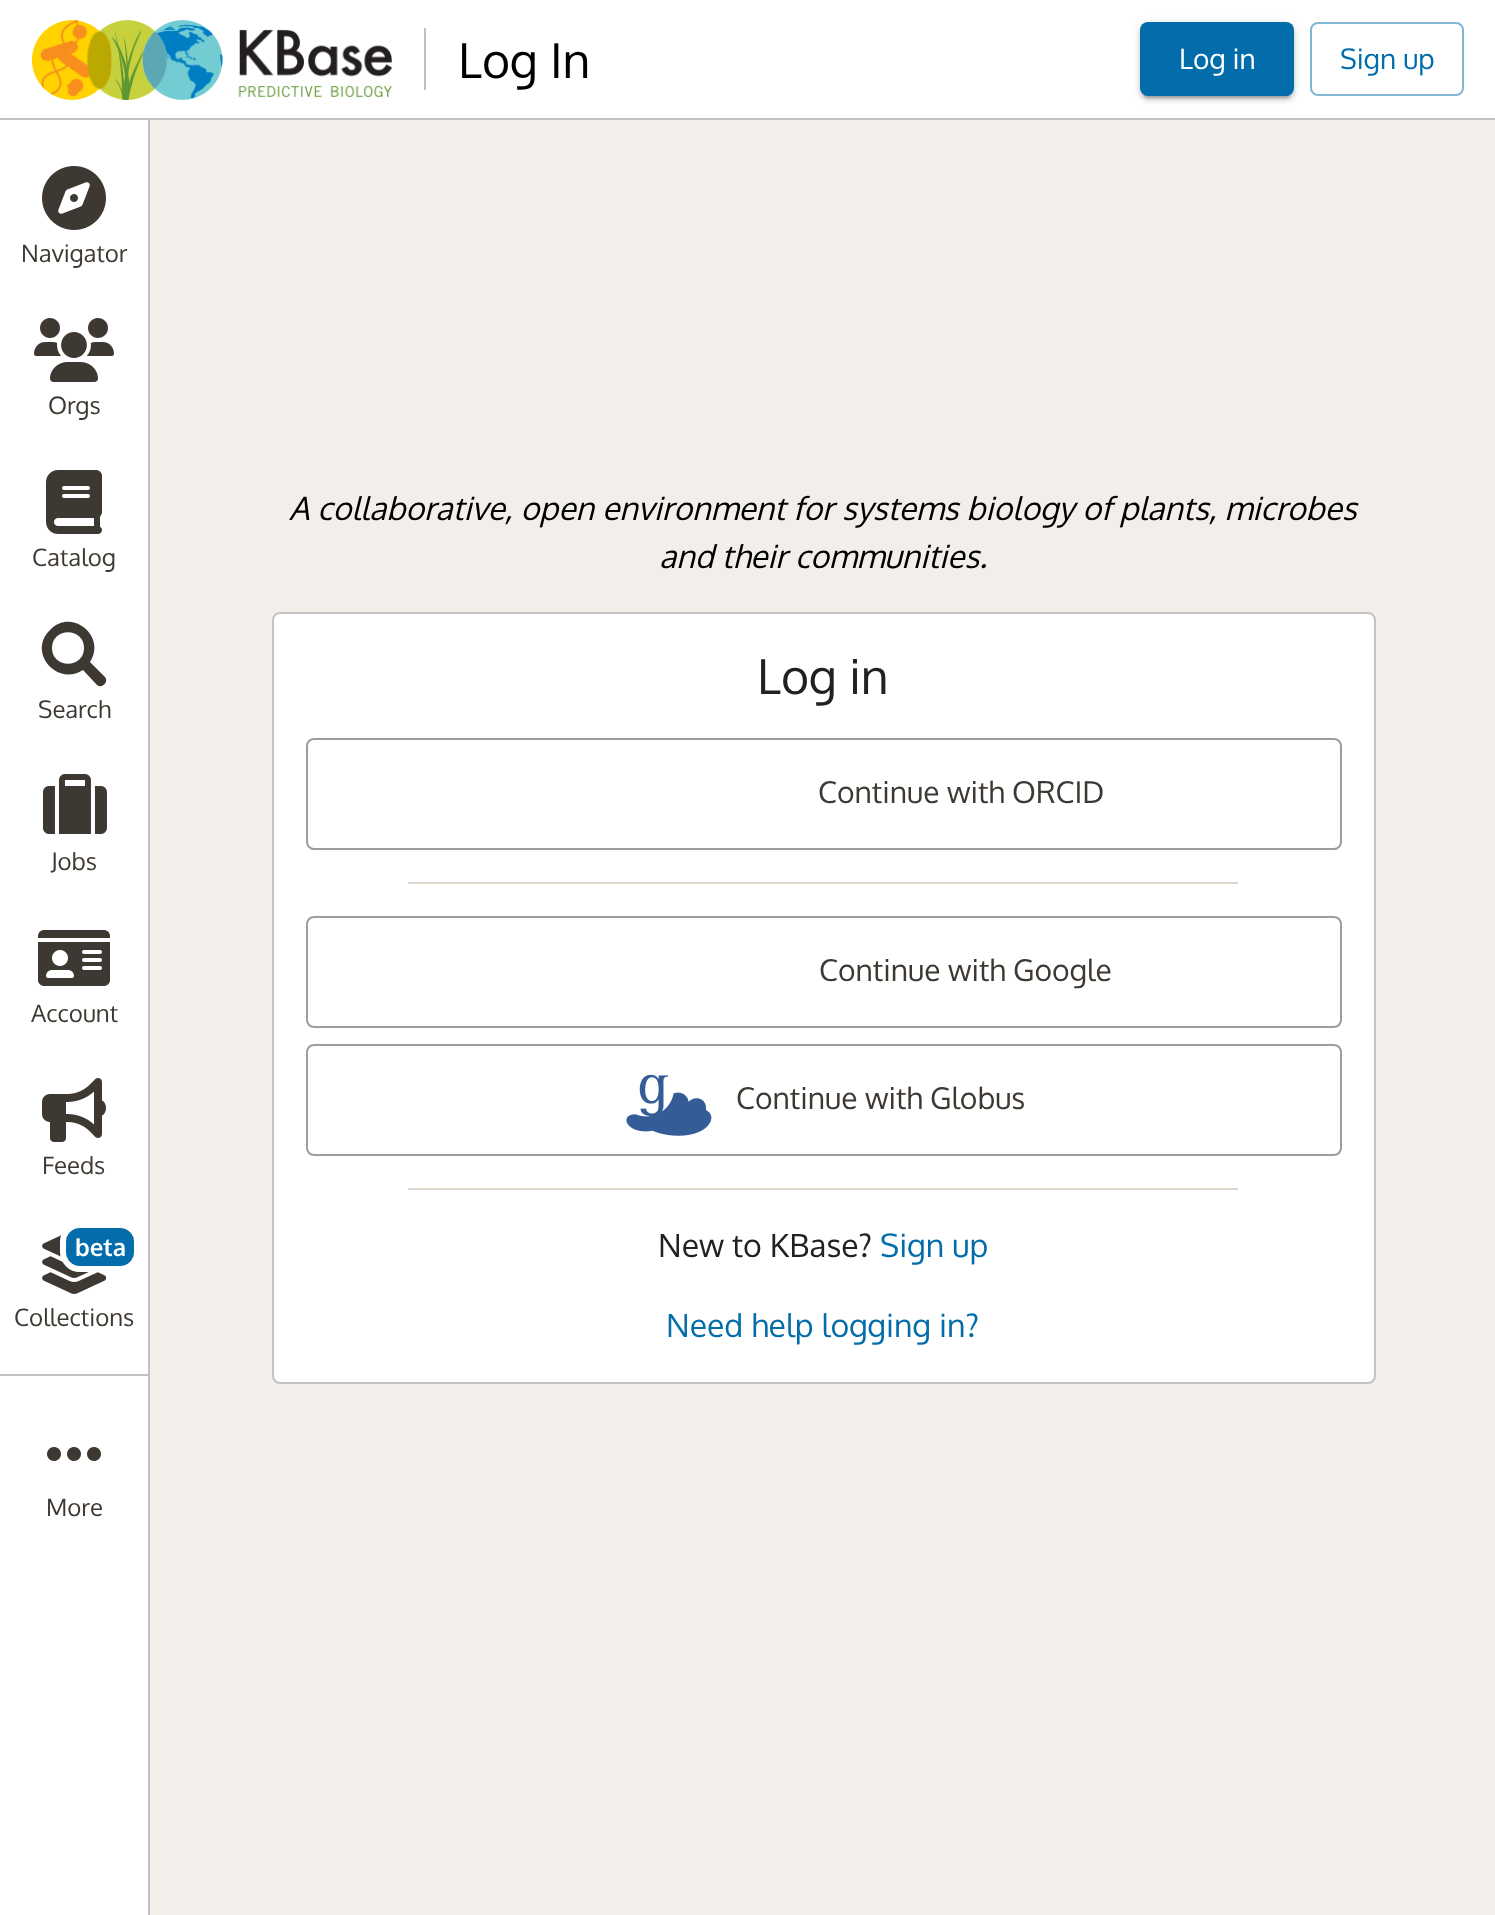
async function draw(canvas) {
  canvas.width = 1495
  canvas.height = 1915
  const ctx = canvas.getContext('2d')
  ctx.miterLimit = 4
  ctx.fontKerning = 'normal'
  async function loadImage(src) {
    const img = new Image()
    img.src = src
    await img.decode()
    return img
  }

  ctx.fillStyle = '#fff'
  ctx.fillRect(0, 0, 1495, 1915)
  ctx.fillStyle = '#c0c0c0'
  ctx.fillRect(0, 118, 1495, 2)
  ctx.drawImage(await loadImage('image0.png'), 32, 20, 360, 80)
  ctx.fillRect(424, 28, 2, 62)
  ctx.font = '48px Oxygen'
  ctx.fillStyle = '#000'
  ctx.fillText('Log In', 458, 78)
  ctx.fillStyle = '#0000001f'
  ctx.filter = 'blur(5px)'
  ctx.beginPath()
  ctx.roundRect(1140, 24, 154, 74, 8)
  ctx.fill()
  ctx.filter = 'none'
  ctx.fillStyle = '#00000024'
  ctx.filter = 'blur(2px)'
  ctx.beginPath()
  ctx.roundRect(1140, 26, 154, 74, 8)
  ctx.fill()
  ctx.filter = 'none'
  ctx.fillStyle = '#00000033'
  ctx.filter = 'blur(1px)'
  ctx.beginPath()
  ctx.roundRect(1144, 32, 146, 66, 4)
  ctx.fill()
  ctx.filter = 'none'
  ctx.fillStyle = '#026daa'
  ctx.beginPath()
  ctx.roundRect(1140, 22, 154, 74, 8)
  ctx.fill()
  ctx.font = '28px Oxygen'
  ctx.fillStyle = '#fff'
  ctx.fillText('Log in', 1179, 69)
  ctx.beginPath()
  ctx.roundRect(1311, 23, 152, 72, 7)
  ctx.strokeStyle = '#81b6d5'
  ctx.lineWidth = 2
  ctx.stroke()
  ctx.fillStyle = '#026daa'
  ctx.fillText('Sign up', 1340, 69)
  ctx.fillStyle = '#c0c0c0'
  ctx.fillRect(148, 120, 2, 1795)
  ctx.fillRect(0, 1374, 148, 2)
  ctx.drawImage(await loadImage('image1.png'), 42, 166, 64, 64)
  ctx.font = '24px Oxygen'
  ctx.fillStyle = '#3e3832'
  ctx.fillText('Navigator', 21, 262)
  ctx.drawImage(await loadImage('image2.png'), 34, 318, 80, 64)
  ctx.fillText('Orgs', 48, 414)
  ctx.drawImage(await loadImage('image3.png'), 46, 470, 56, 64)
  ctx.fillText('Catalog', 32, 566)
  ctx.beginPath()
  ctx.moveTo(105, 677)
  ctx.lineTo(90, 662)
  ctx.bezierCurveTo(107, 637, 72, 607, 50, 630)
  ctx.bezierCurveTo(27, 652, 57, 687, 83, 670)
  ctx.lineTo(97, 685)
  ctx.bezierCurveTo(102, 689, 109, 682, 105, 677)
  ctx.closePath()
  ctx.moveTo(52, 648)
  ctx.bezierCurveTo(52, 627, 84, 627, 84, 648)
  ctx.bezierCurveTo(84, 669, 52, 669, 52, 648)
  ctx.closePath()
  ctx.fill()
  ctx.fillText('Search', 38, 718)
  ctx.drawImage(await loadImage('image4.png'), 42, 774, 65, 60)
  ctx.fillText('Jobs', 51, 870)
  ctx.drawImage(await loadImage('image5.png'), 38, 930, 72, 56)
  ctx.fillText('Account', 31, 1022)
  ctx.drawImage(await loadImage('image6.png'), 42, 1078, 64, 64)
  ctx.fillText('Feeds', 42, 1174)
  ctx.drawImage(await loadImage('image7.png'), 42, 1235, 65, 59)
  ctx.fillStyle = '#026daa'
  ctx.beginPath()
  ctx.roundRect(63, 1225, 74, 44, 17)
  ctx.fill()
  ctx.strokeStyle = '#fff'
  ctx.lineWidth = 6
  ctx.stroke()
  ctx.font = 'bold 24px Oxygen'
  ctx.fillStyle = '#fff'
  ctx.fillText('beta', 75, 1256)
  ctx.font = '24px Oxygen'
  ctx.fillStyle = '#3e3832'
  ctx.fillText('Collections', 14, 1326)
  ctx.drawImage(await loadImage('image8.png'), 47, 1447, 54, 14)
  ctx.fillText('More', 46, 1516)
  ctx.fillStyle = '#f2efeb'
  ctx.fillRect(150, 120, 1345, 1795)
  ctx.font = 'italic 32px Oxygen'
  ctx.fillStyle = '#000'
  ctx.fillText('A collaborative, open environment for systems biology of plants, microbes', 289, 520)
  ctx.fillText('and their communities.', 659, 568)
  ctx.fillStyle = '#fff'
  ctx.beginPath()
  ctx.roundRect(272, 612, 1104, 772, 8)
  ctx.fill()
  ctx.beginPath()
  ctx.roundRect(273, 613, 1102, 770, 7)
  ctx.strokeStyle = '#3e38324d'
  ctx.lineWidth = 2
  ctx.stroke()
  ctx.font = '48px Oxygen'
  ctx.fillStyle = '#212121'
  ctx.fillText('Log in', 757, 694)
  ctx.beginPath()
  ctx.roundRect(307, 739, 1034, 110, 7)
  ctx.strokeStyle = '#9f9c99'
  ctx.stroke()
  ctx.font = '30px Oxygen'
  ctx.fillStyle = '#3e3832'
  ctx.fillText('Continue with ORCID', 818, 803)
  ctx.fillStyle = '#ded5cb'
  ctx.fillRect(408, 882, 830, 2)
  ctx.beginPath()
  ctx.roundRect(307, 917, 1034, 110, 7)
  ctx.stroke()
  ctx.fillStyle = '#3e3832'
  ctx.fillText('Continue with Google', 819, 981)
  ctx.beginPath()
  ctx.roundRect(307, 1045, 1034, 110, 7)
  ctx.stroke()
  ctx.drawImage(await loadImage('image9.png'), 626, 1074, 86, 62)
  ctx.fillText('Continue with Globus', 736, 1109)
  ctx.fillStyle = '#ded5cb'
  ctx.fillRect(408, 1188, 830, 2)
  ctx.font = '32px Oxygen'
  ctx.fillStyle = '#212121'
  ctx.fillText('New to KBase?', 658, 1257)
  ctx.fillStyle = '#026daa'
  ctx.fillText('Sign up', 880, 1257)
  ctx.fillText('Need help logging in?', 666, 1337)
}

draw(document.querySelector('canvas'))
